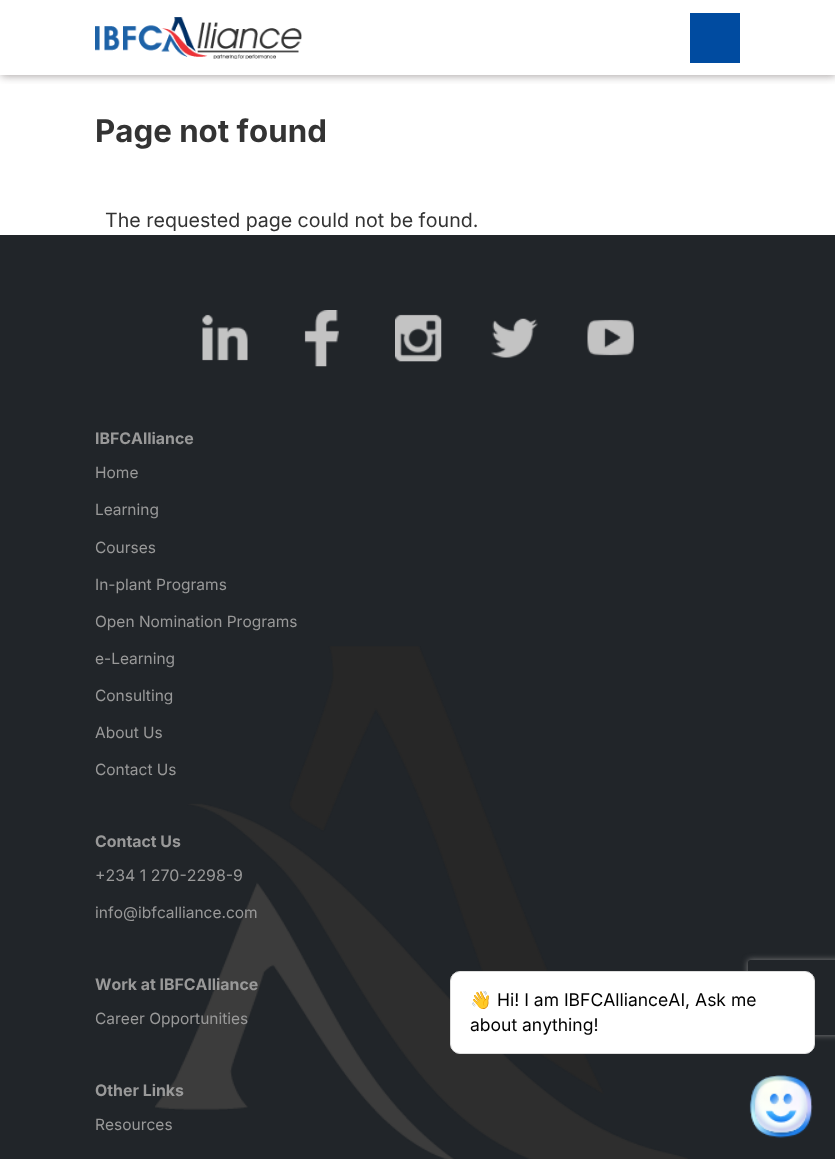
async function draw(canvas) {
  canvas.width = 835
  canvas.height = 1159
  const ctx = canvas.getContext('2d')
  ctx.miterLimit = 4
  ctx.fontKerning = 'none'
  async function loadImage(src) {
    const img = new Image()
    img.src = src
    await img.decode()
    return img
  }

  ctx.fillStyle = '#fff'
  ctx.fillRect(0, 0, 835, 1159)
  ctx.save()
  ctx.beginPath()
  ctx.rect(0, 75, 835, 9)
  ctx.clip()
  ctx.fillStyle = '#8b8484bf'
  ctx.filter = 'blur(4px)'
  ctx.beginPath()
  ctx.rect(1, 1, 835, 75)
  ctx.fill()
  ctx.filter = 'none'
  ctx.restore()
  ctx.drawImage(await loadImage('image0.png'), 95, 17, 207, 42)
  ctx.fillStyle = '#004ba0'
  ctx.fillRect(690, 13, 50, 50)
  ctx.font = 'bold 31.25px Inter'
  ctx.fillStyle = '#333'
  ctx.fillText('Page not found', 95, 142)
  ctx.font = '19.6px Inter'
  ctx.fillText('The requested page could not be found.', 105, 227)
  ctx.fillStyle = '#212529'
  ctx.fillRect(0, 235, 835, 924)
  ctx.drawImage(await loadImage('image1.png'), 155, 646, 533, 513)
  ctx.drawImage(await loadImage('image2.png'), 202, 314, 46, 47)
  ctx.drawImage(await loadImage('image3.png'), 304, 310, 35, 57)
  ctx.drawImage(await loadImage('image4.png'), 395, 314, 47, 48)
  ctx.drawImage(await loadImage('image5.png'), 491, 318, 47, 40)
  ctx.drawImage(await loadImage('image6.png'), 587, 319, 47, 37)
  ctx.font = 'bold 15.9px Inter'
  ctx.fillStyle = '#999'
  ctx.fillText('IBFCAlliance', 95, 444)
  ctx.font = '15.5px Inter'
  ctx.fillText('Home', 95, 478)
  ctx.fillText('Learning', 95, 515)
  ctx.fillText('Courses', 95, 553)
  ctx.fillText('In-plant Programs', 95, 590)
  ctx.fillText('Open Nomination Programs', 95, 627)
  ctx.fillText('e-Learning', 95, 664)
  ctx.fillText('Consulting', 95, 701)
  ctx.fillText('About Us', 95, 738)
  ctx.fillText('Contact Us', 95, 775)
  ctx.font = 'bold 15.9px Inter'
  ctx.fillText('Contact Us', 95, 847)
  ctx.font = '15.9px Inter'
  ctx.fillText('+234 1 270-2298-9', 95, 881)
  ctx.font = '15.5px Inter'
  ctx.fillText('info@ibfcalliance.com', 95, 918)
  ctx.font = 'bold 15.9px Inter'
  ctx.fillText('Work at IBFCAlliance', 95, 990)
  ctx.font = '15.5px Inter'
  ctx.fillText('Career Opportunities', 95, 1024)
  ctx.font = 'bold 15.9px Inter'
  ctx.fillText('Other Links', 95, 1096)
  ctx.font = '15.5px Inter'
  ctx.fillText('Resources', 95, 1130)
  ctx.save()
  ctx.beginPath()
  ctx.moveTo(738, 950)
  ctx.lineTo(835, 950)
  ctx.lineTo(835, 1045)
  ctx.lineTo(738, 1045)
  ctx.closePath()
  ctx.moveTo(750.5, 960)
  ctx.lineTo(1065.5, 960)
  ctx.bezierCurveTo(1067, 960, 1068, 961, 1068, 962.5)
  ctx.lineTo(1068, 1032.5)
  ctx.bezierCurveTo(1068, 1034, 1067, 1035, 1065.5, 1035)
  ctx.lineTo(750.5, 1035)
  ctx.bezierCurveTo(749, 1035, 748, 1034, 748, 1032.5)
  ctx.lineTo(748, 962.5)
  ctx.bezierCurveTo(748, 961, 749, 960, 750.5, 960)
  ctx.closePath()
  ctx.clip('evenodd')
  ctx.fillStyle = '#808080'
  ctx.filter = 'blur(3px)'
  ctx.beginPath()
  ctx.roundRect(748, 960, 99, 75, 2.5)
  ctx.fill()
  ctx.filter = 'none'
  ctx.restore()
  ctx.fillStyle = '#fff'
  ctx.beginPath()
  ctx.roundRect(450.5, 971.5, 364, 82, 9.5)
  ctx.fill()
  ctx.strokeStyle = '#ddd'
  ctx.stroke()
  ctx.font = '17.5px Noto Color Emoji'
  ctx.fillStyle = '#000'
  ctx.fillText('👋', 470, 1006)
  ctx.font = '17.5px Inter'
  ctx.fillText('Hi! I am IBFCAllianceAI, Ask me', 497, 1006)
  ctx.fillText('about anything!', 470, 1031)
  ctx.drawImage(await loadImage('image7.png'), 749, 1075, 64, 63)
}

draw(document.querySelector('canvas'))
